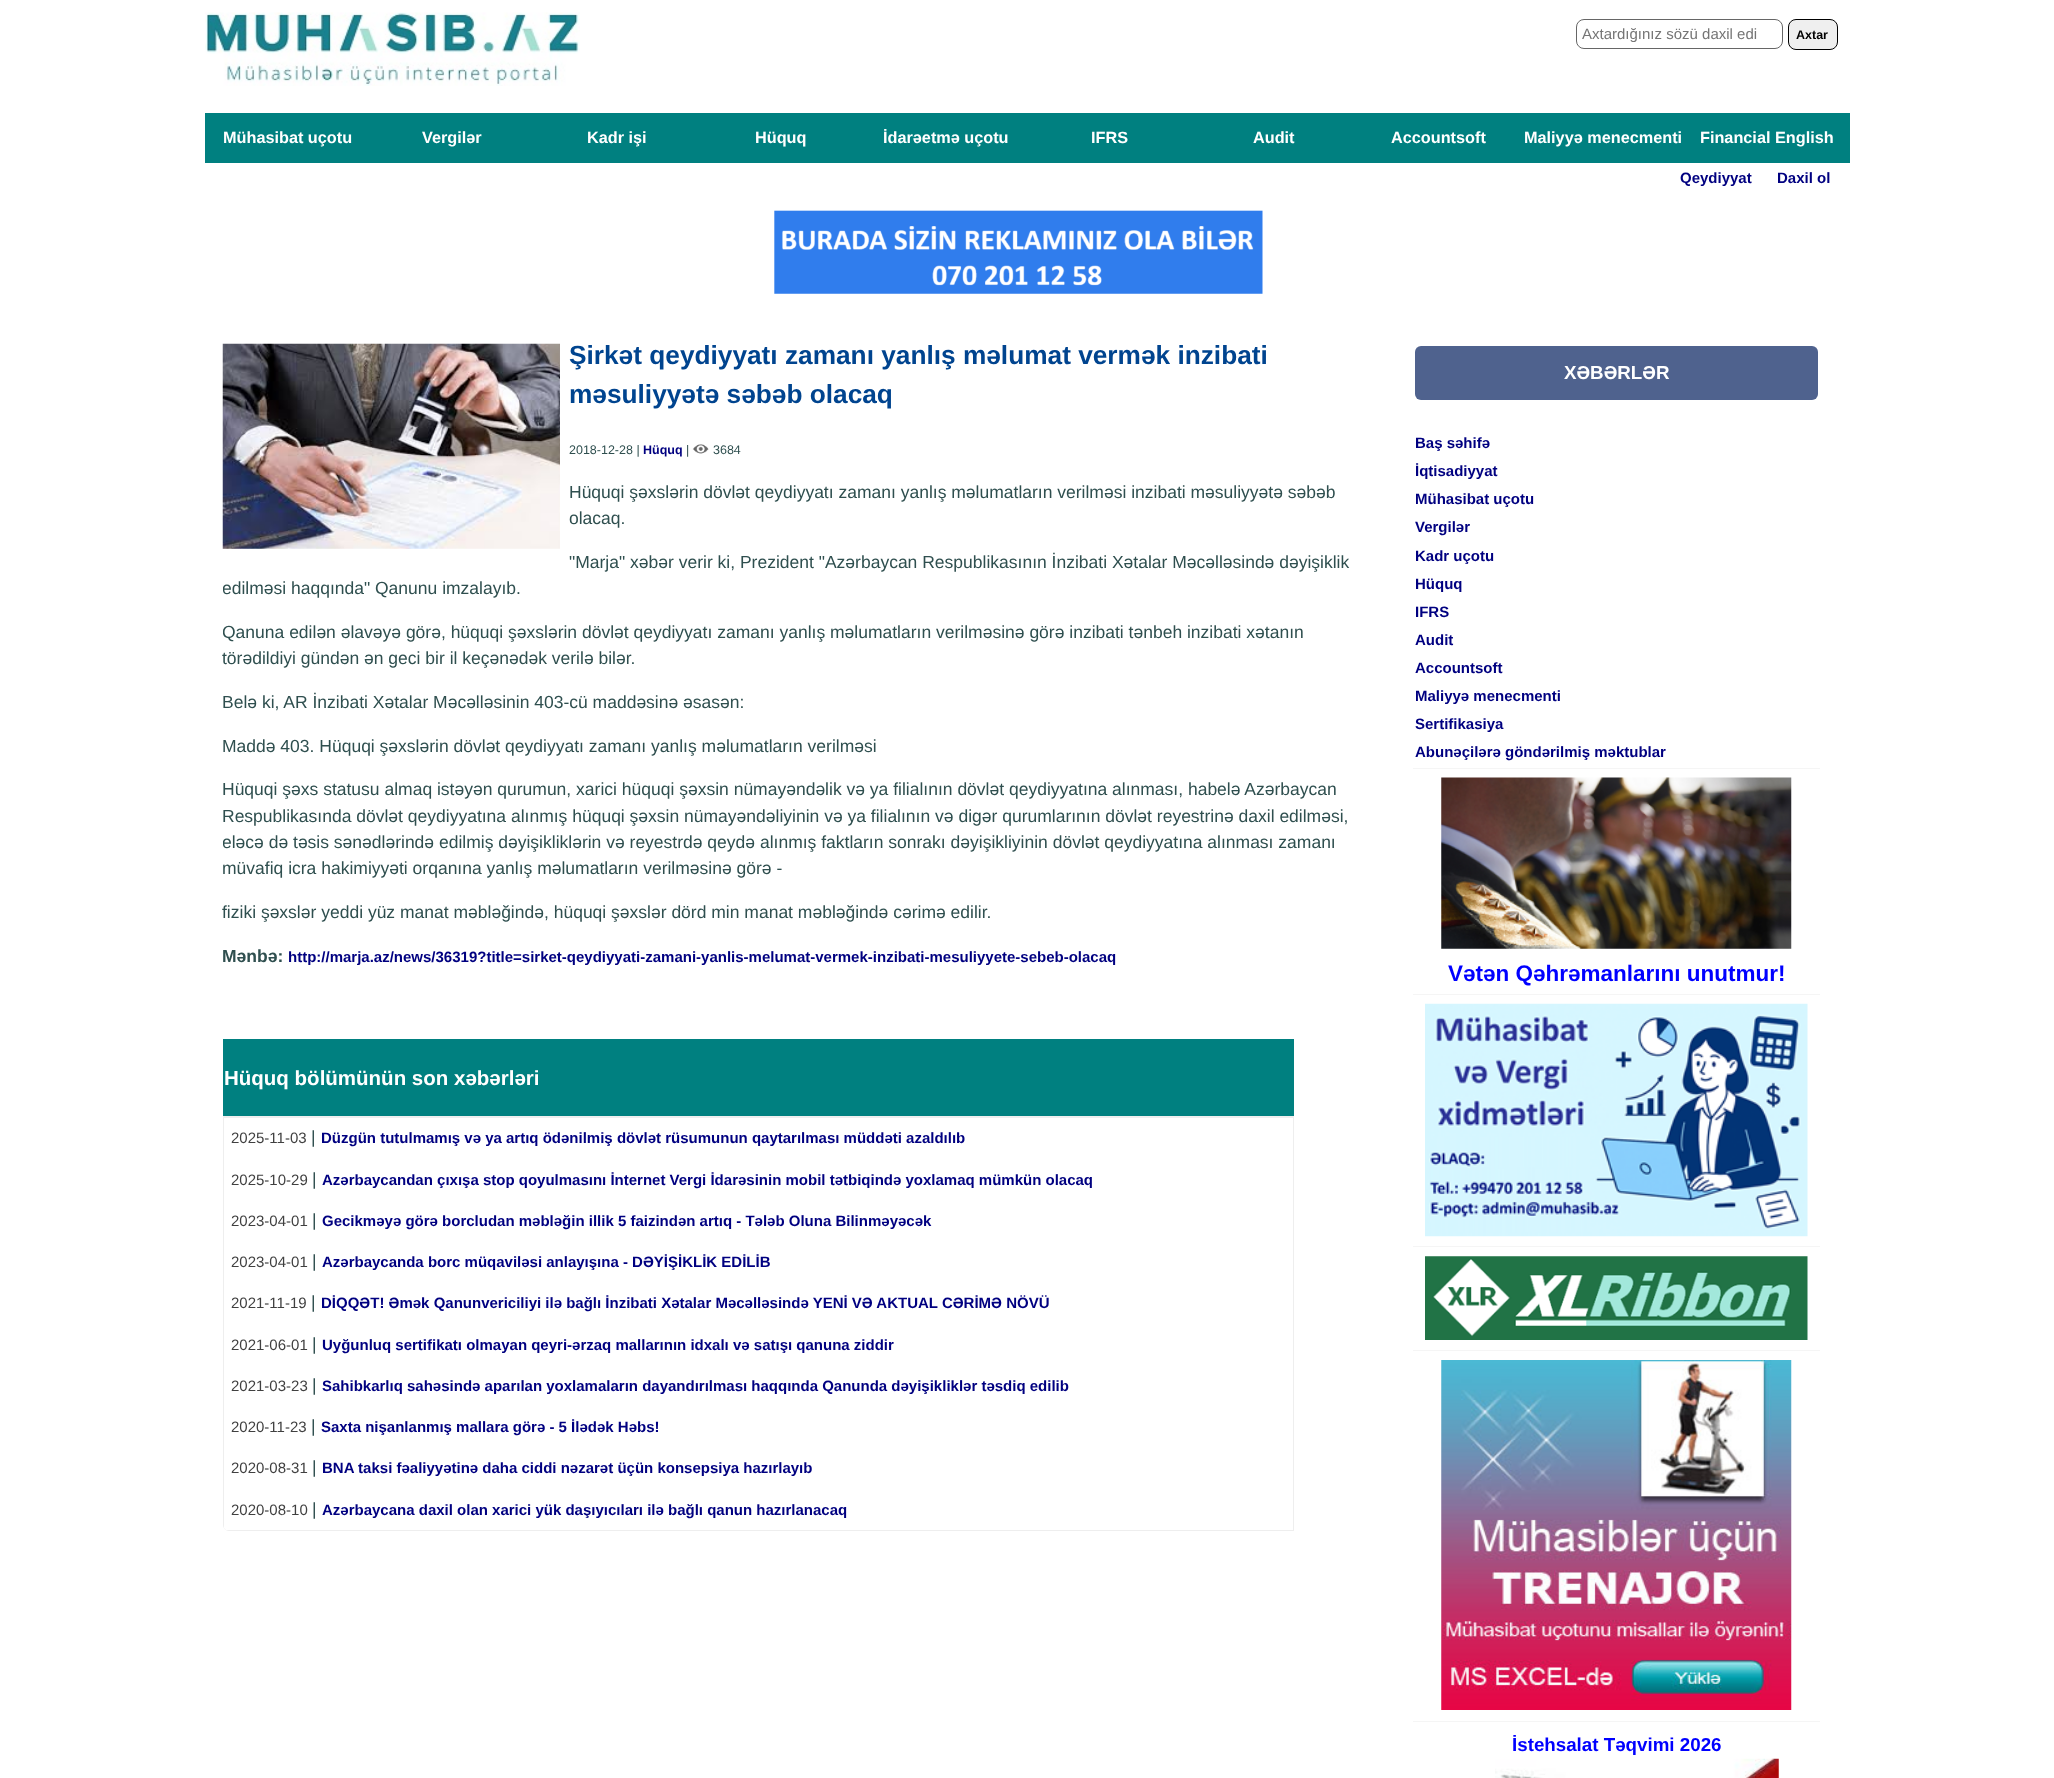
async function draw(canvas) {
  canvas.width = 2054
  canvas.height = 1778
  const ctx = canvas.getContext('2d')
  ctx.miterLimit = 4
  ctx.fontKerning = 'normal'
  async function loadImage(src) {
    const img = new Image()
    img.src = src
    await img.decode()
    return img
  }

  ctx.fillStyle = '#fff'
  ctx.fillRect(0, 0, 2054, 1778)
  ctx.drawImage(await loadImage('image0.png'), 205, 12, 375, 74)
  ctx.beginPath()
  ctx.roundRect(1576.5, 19.5, 206, 29, 7.5)
  ctx.strokeStyle = '#666'
  ctx.stroke()
  ctx.font = '15px Liberation Sans'
  ctx.fillStyle = '#757575'
  ctx.fillText('Axtardığınız sözü daxil edi', 1582, 39)
  ctx.fillStyle = '#efefef'
  ctx.beginPath()
  ctx.roundRect(1788.5, 19.5, 49, 30, 7.5)
  ctx.fill()
  ctx.strokeStyle = '#000'
  ctx.stroke()
  ctx.font = 'bold 12.5px Liberation Sans'
  ctx.fillStyle = '#000'
  ctx.fillText('Axtar', 1796, 39)
  ctx.fillStyle = '#008080'
  ctx.fillRect(205, 113, 1645, 50)
  ctx.font = 'bold 16.25px Liberation Sans'
  ctx.fillStyle = '#fff'
  ctx.fillText('Mühasibat uçotu', 223, 143)
  ctx.fillText('Vergilər', 422, 143)
  ctx.fillText('Kadr işi', 587, 143)
  ctx.fillText('Hüquq', 755, 143)
  ctx.fillText('İdarəetmə uçotu', 883, 143)
  ctx.fillText('IFRS', 1091, 143)
  ctx.fillText('Audit', 1253, 143)
  ctx.fillText('Accountsoft', 1391, 143)
  ctx.fillText('Maliyyə menecmenti', 1524, 143)
  ctx.fillText('Financial English', 1700, 143)
  ctx.font = 'bold 15px Liberation Sans'
  ctx.fillStyle = '#000080'
  ctx.fillText('Qeydiyyat', 1680, 183)
  ctx.fillText('Daxil ol', 1777, 183)
  ctx.drawImage(await loadImage('image1.png'), 774, 210, 489, 84)
  ctx.drawImage(await loadImage('image2.png'), 222, 343, 338, 206)
  ctx.font = 'bold 26.25px Liberation Sans'
  ctx.fillStyle = '#00448f'
  ctx.fillText('Şirkət qeydiyyatı zamanı yanlış məlumat vermək inzibati', 569, 364)
  ctx.fillText('məsuliyyətə səbəb olacaq', 569, 403)
  ctx.font = '12.5px Liberation Sans'
  ctx.fillStyle = '#2f4f4f'
  ctx.fillText('2018-12-28 |', 569, 454)
  ctx.font = 'bold 12.5px Liberation Sans'
  ctx.fillStyle = '#000080'
  ctx.fillText('Hüquq', 643, 454)
  ctx.font = '12.5px Liberation Sans'
  ctx.fillStyle = '#2f4f4f'
  ctx.fillText('|', 686, 454)
  ctx.drawImage(await loadImage('image3.png'), 692, 444, 17, 10)
  ctx.fillText('3684', 713, 454)
  ctx.font = '17.5px Liberation Sans'
  ctx.fillText('Hüquqi şəxslərin dövlət qeydiyyatı zamanı yanlış məlumatların verilməsi inzibati məsuliyyətə səbəb', 569, 498)
  ctx.fillText('olacaq.', 569, 524)
  ctx.fillText('"Marja" xəbər verir ki, Prezident "Azərbaycan Respublikasının İnzibati Xətalar Məcəlləsində dəyişiklik', 569, 568)
  ctx.save()
  ctx.beginPath()
  ctx.roundRect(223, 313, 1127, 1218, 6)
  ctx.clip()
  ctx.fillText('edilməsi haqqında"', 222, 594)
  ctx.restore()
  ctx.fillText('Qanunu imzalayıb.', 375, 594)
  ctx.save()
  ctx.beginPath()
  ctx.roundRect(223, 313, 1127, 1218, 6)
  ctx.clip()
  ctx.fillText('Qanuna edilən əlavəyə görə, hüquqi şəxslərin dövlət qeydiyyatı zamanı yanlış məlumatların verilməsinə görə inzibati tənbeh inzibati xətanın', 222, 638)
  ctx.restore()
  ctx.fillText('törədildiyi gündən ən geci bir il keçənədək verilə bilər.', 222, 664)
  ctx.fillText('Belə ki, AR İnzibati Xətalar Məcəlləsinin 403-cü maddəsinə əsasən:', 222, 708)
  ctx.fillText('Maddə 403. Hüquqi şəxslərin dövlət qeydiyyatı zamanı yanlış məlumatların verilməsi', 222, 752)
  ctx.fillText('Hüquqi şəxs statusu almaq istəyən qurumun, xarici hüquqi şəxsin nümayəndəlik və ya filialının dövlət qeydiyyatına alınması, habelə Azərbaycan', 222, 795)
  ctx.fillText('Respublikasında dövlət qeydiyyatına alınmış hüquqi şəxsin nümayəndəliyinin və ya filialının və digər qurumlarının dövlət reyestrinə daxil edilməsi,', 222, 822)
  ctx.save()
  ctx.beginPath()
  ctx.roundRect(223, 313, 1127, 1218, 6)
  ctx.clip()
  ctx.fillText('eləcə də təsis sənədlərində edilmiş dəyişikliklərin və reyestrdə qeydə alınmış faktların sonrakı dəyişikliyinin dövlət qeydiyyatına alınması zamanı', 222, 848)
  ctx.restore()
  ctx.fillText('müvafiq icra hakimiyyəti orqanına yanlış məlumatların verilməsinə görə -', 222, 874)
  ctx.fillText('fiziki şəxslər yeddi yüz manat məbləğində, hüquqi şəxslər dörd min manat məbləğində cərimə edilir.', 222, 918)
  ctx.font = 'bold 17.5px Liberation Sans'
  ctx.fillText('Mənbə:', 222, 962)
  ctx.font = 'bold 15px Liberation Sans'
  ctx.fillStyle = '#000080'
  ctx.fillText('http://marja.az/news/36319?title=sirket-qeydiyyati-zamani-yanlis-melumat-vermek-inzibati-mesuliyyete-sebeb-olacaq', 288, 962)
  ctx.fillStyle = '#008080'
  ctx.fillRect(223, 1039, 1071, 77)
  ctx.font = 'bold 20.5px Liberation Sans'
  ctx.fillStyle = '#fff'
  ctx.fillText('Hüquq bölümünün son xəbərləri', 224, 1085)
  ctx.fillStyle = '#eee'
  ctx.beginPath()
  ctx.moveTo(223, 1116)
  ctx.lineTo(223, 1525)
  ctx.bezierCurveTo(223, 1528, 226, 1531, 229, 1531)
  ctx.lineTo(1294, 1531)
  ctx.lineTo(1294, 1116)
  ctx.closePath()
  ctx.fill()
  ctx.fillStyle = '#fff'
  ctx.fillRect(224, 1118, 1069, 371)
  ctx.font = '15px Liberation Sans'
  ctx.fillStyle = '#404040'
  ctx.fillText('2025-11-03', 231, 1143)
  ctx.font = '17.5px Liberation Sans'
  ctx.fillStyle = '#2f4f4f'
  ctx.fillText('|', 311, 1143)
  ctx.font = 'bold 15px Liberation Sans'
  ctx.fillStyle = '#000080'
  ctx.fillText('Düzgün tutulmamış və ya artıq ödənilmiş dövlət rüsumunun qaytarılması müddəti azaldılıb', 321, 1143)
  ctx.font = '15px Liberation Sans'
  ctx.fillStyle = '#404040'
  ctx.fillText('2025-10-29', 231, 1185)
  ctx.font = '17.5px Liberation Sans'
  ctx.fillStyle = '#2f4f4f'
  ctx.fillText('|', 312, 1185)
  ctx.font = 'bold 15px Liberation Sans'
  ctx.fillStyle = '#000080'
  ctx.fillText('Azərbaycandan çıxışa stop qoyulmasını İnternet Vergi İdarəsinin mobil tətbiqində yoxlamaq mümkün olacaq', 322, 1185)
  ctx.font = '15px Liberation Sans'
  ctx.fillStyle = '#404040'
  ctx.fillText('2023-04-01', 231, 1226)
  ctx.font = '17.5px Liberation Sans'
  ctx.fillStyle = '#2f4f4f'
  ctx.fillText('|', 312, 1226)
  ctx.font = 'bold 15px Liberation Sans'
  ctx.fillStyle = '#000080'
  ctx.fillText('Gecikməyə görə borcludan məbləğin illik 5 faizindən artıq - Tələb Oluna Bilinməyəcək', 322, 1226)
  ctx.font = '15px Liberation Sans'
  ctx.fillStyle = '#404040'
  ctx.fillText('2023-04-01', 231, 1267)
  ctx.font = '17.5px Liberation Sans'
  ctx.fillStyle = '#2f4f4f'
  ctx.fillText('|', 312, 1267)
  ctx.font = 'bold 15px Liberation Sans'
  ctx.fillStyle = '#000080'
  ctx.fillText('Azərbaycanda borc müqaviləsi anlayışına - DƏYİŞİKLİK EDİLİB', 322, 1267)
  ctx.font = '15px Liberation Sans'
  ctx.fillStyle = '#404040'
  ctx.fillText('2021-11-19', 231, 1308)
  ctx.font = '17.5px Liberation Sans'
  ctx.fillStyle = '#2f4f4f'
  ctx.fillText('|', 311, 1308)
  ctx.font = 'bold 15px Liberation Sans'
  ctx.fillStyle = '#000080'
  ctx.fillText('DİQQƏT! Əmək Qanunvericiliyi ilə bağlı İnzibati Xətalar Məcəlləsində YENİ VƏ AKTUAL CƏRİMƏ NÖVÜ', 321, 1308)
  ctx.font = '15px Liberation Sans'
  ctx.fillStyle = '#404040'
  ctx.fillText('2021-06-01', 231, 1350)
  ctx.font = '17.5px Liberation Sans'
  ctx.fillStyle = '#2f4f4f'
  ctx.fillText('|', 312, 1350)
  ctx.font = 'bold 15px Liberation Sans'
  ctx.fillStyle = '#000080'
  ctx.fillText('Uyğunluq sertifikatı olmayan qeyri-ərzaq mallarının idxalı və satışı qanuna ziddir', 322, 1350)
  ctx.font = '15px Liberation Sans'
  ctx.fillStyle = '#404040'
  ctx.fillText('2021-03-23', 231, 1391)
  ctx.font = '17.5px Liberation Sans'
  ctx.fillStyle = '#2f4f4f'
  ctx.fillText('|', 312, 1391)
  ctx.font = 'bold 15px Liberation Sans'
  ctx.fillStyle = '#000080'
  ctx.fillText('Sahibkarlıq sahəsində aparılan yoxlamaların dayandırılması haqqında Qanunda dəyişikliklər təsdiq edilib', 322, 1391)
  ctx.font = '15px Liberation Sans'
  ctx.fillStyle = '#404040'
  ctx.fillText('2020-11-23', 231, 1432)
  ctx.font = '17.5px Liberation Sans'
  ctx.fillStyle = '#2f4f4f'
  ctx.fillText('|', 311, 1432)
  ctx.font = 'bold 15px Liberation Sans'
  ctx.fillStyle = '#000080'
  ctx.fillText('Saxta nişanlanmış mallara görə - 5 İlədək Həbs!', 321, 1432)
  ctx.font = '15px Liberation Sans'
  ctx.fillStyle = '#404040'
  ctx.fillText('2020-08-31', 231, 1473)
  ctx.font = '17.5px Liberation Sans'
  ctx.fillStyle = '#2f4f4f'
  ctx.fillText('|', 312, 1473)
  ctx.font = 'bold 15px Liberation Sans'
  ctx.fillStyle = '#000080'
  ctx.fillText('BNA taksi fəaliyyətinə daha ciddi nəzarət üçün konsepsiya hazırlayıb', 322, 1473)
  ctx.fillStyle = '#fff'
  ctx.beginPath()
  ctx.moveTo(224, 1489)
  ctx.lineTo(1293, 1489)
  ctx.lineTo(1293, 1530)
  ctx.lineTo(226, 1530)
  ctx.lineTo(224, 1528)
  ctx.closePath()
  ctx.fill()
  ctx.font = '15px Liberation Sans'
  ctx.fillStyle = '#404040'
  ctx.fillText('2020-08-10', 231, 1515)
  ctx.font = '17.5px Liberation Sans'
  ctx.fillStyle = '#2f4f4f'
  ctx.fillText('|', 312, 1515)
  ctx.font = 'bold 15px Liberation Sans'
  ctx.fillStyle = '#000080'
  ctx.fillText('Azərbaycana daxil olan xarici yük daşıyıcıları ilə bağlı qanun hazırlanacaq', 322, 1515)
  ctx.fillStyle = '#f5f5f5'
  ctx.fillRect(1413, 768, 407, 1)
  ctx.fillStyle = '#4f628e'
  ctx.beginPath()
  ctx.roundRect(1415, 346, 403, 54, 6)
  ctx.fill()
  ctx.font = 'bold 18.75px Liberation Sans'
  ctx.fillStyle = '#fff'
  ctx.fillText('XƏBƏRLƏR', 1564, 379)
  ctx.font = 'bold 15px Liberation Sans'
  ctx.fillStyle = '#000080'
  ctx.fillText('Baş səhifə', 1415, 448)
  ctx.fillText('İqtisadiyyat', 1415, 476)
  ctx.fillText('Mühasibat uçotu', 1415, 504)
  ctx.fillText('Vergilər', 1415, 532)
  ctx.fillText('Kadr uçotu', 1415, 561)
  ctx.fillText('Hüquq', 1415, 589)
  ctx.fillText('IFRS', 1415, 617)
  ctx.fillText('Audit', 1415, 645)
  ctx.fillText('Accountsoft', 1415, 673)
  ctx.fillText('Maliyyə menecmenti', 1415, 701)
  ctx.fillText('Sertifikasiya', 1415, 729)
  ctx.fillText('Abunəçilərə göndərilmiş məktublar', 1415, 757)
  ctx.fillStyle = '#f5f5f5'
  ctx.fillRect(1413, 994, 407, 1)
  ctx.drawImage(await loadImage('image4.png'), 1441, 777, 351, 172)
  ctx.font = 'bold 22.5px Liberation Sans'
  ctx.fillStyle = '#00f'
  ctx.fillText('Vətən Qəhrəmanlarını unutmur!', 1448, 981)
  ctx.fillStyle = '#f5f5f5'
  ctx.fillRect(1413, 1246, 407, 1)
  ctx.drawImage(await loadImage('image5.png'), 1425, 1003, 383, 234)
  ctx.fillRect(1413, 1350, 407, 1)
  ctx.drawImage(await loadImage('image6.png'), 1425, 1256, 383, 84)
  ctx.fillRect(1413, 1721, 407, 1)
  ctx.drawImage(await loadImage('image7.png'), 1441, 1360, 351, 350)
  ctx.font = 'bold 18.75px Liberation Sans'
  ctx.fillStyle = '#00f'
  ctx.fillText('İstehsalat Təqvimi 2026', 1512, 1751)
  ctx.drawImage(await loadImage('image8.png'), 1495, 1758, 284, 20)
}

draw(document.querySelector('canvas'))
